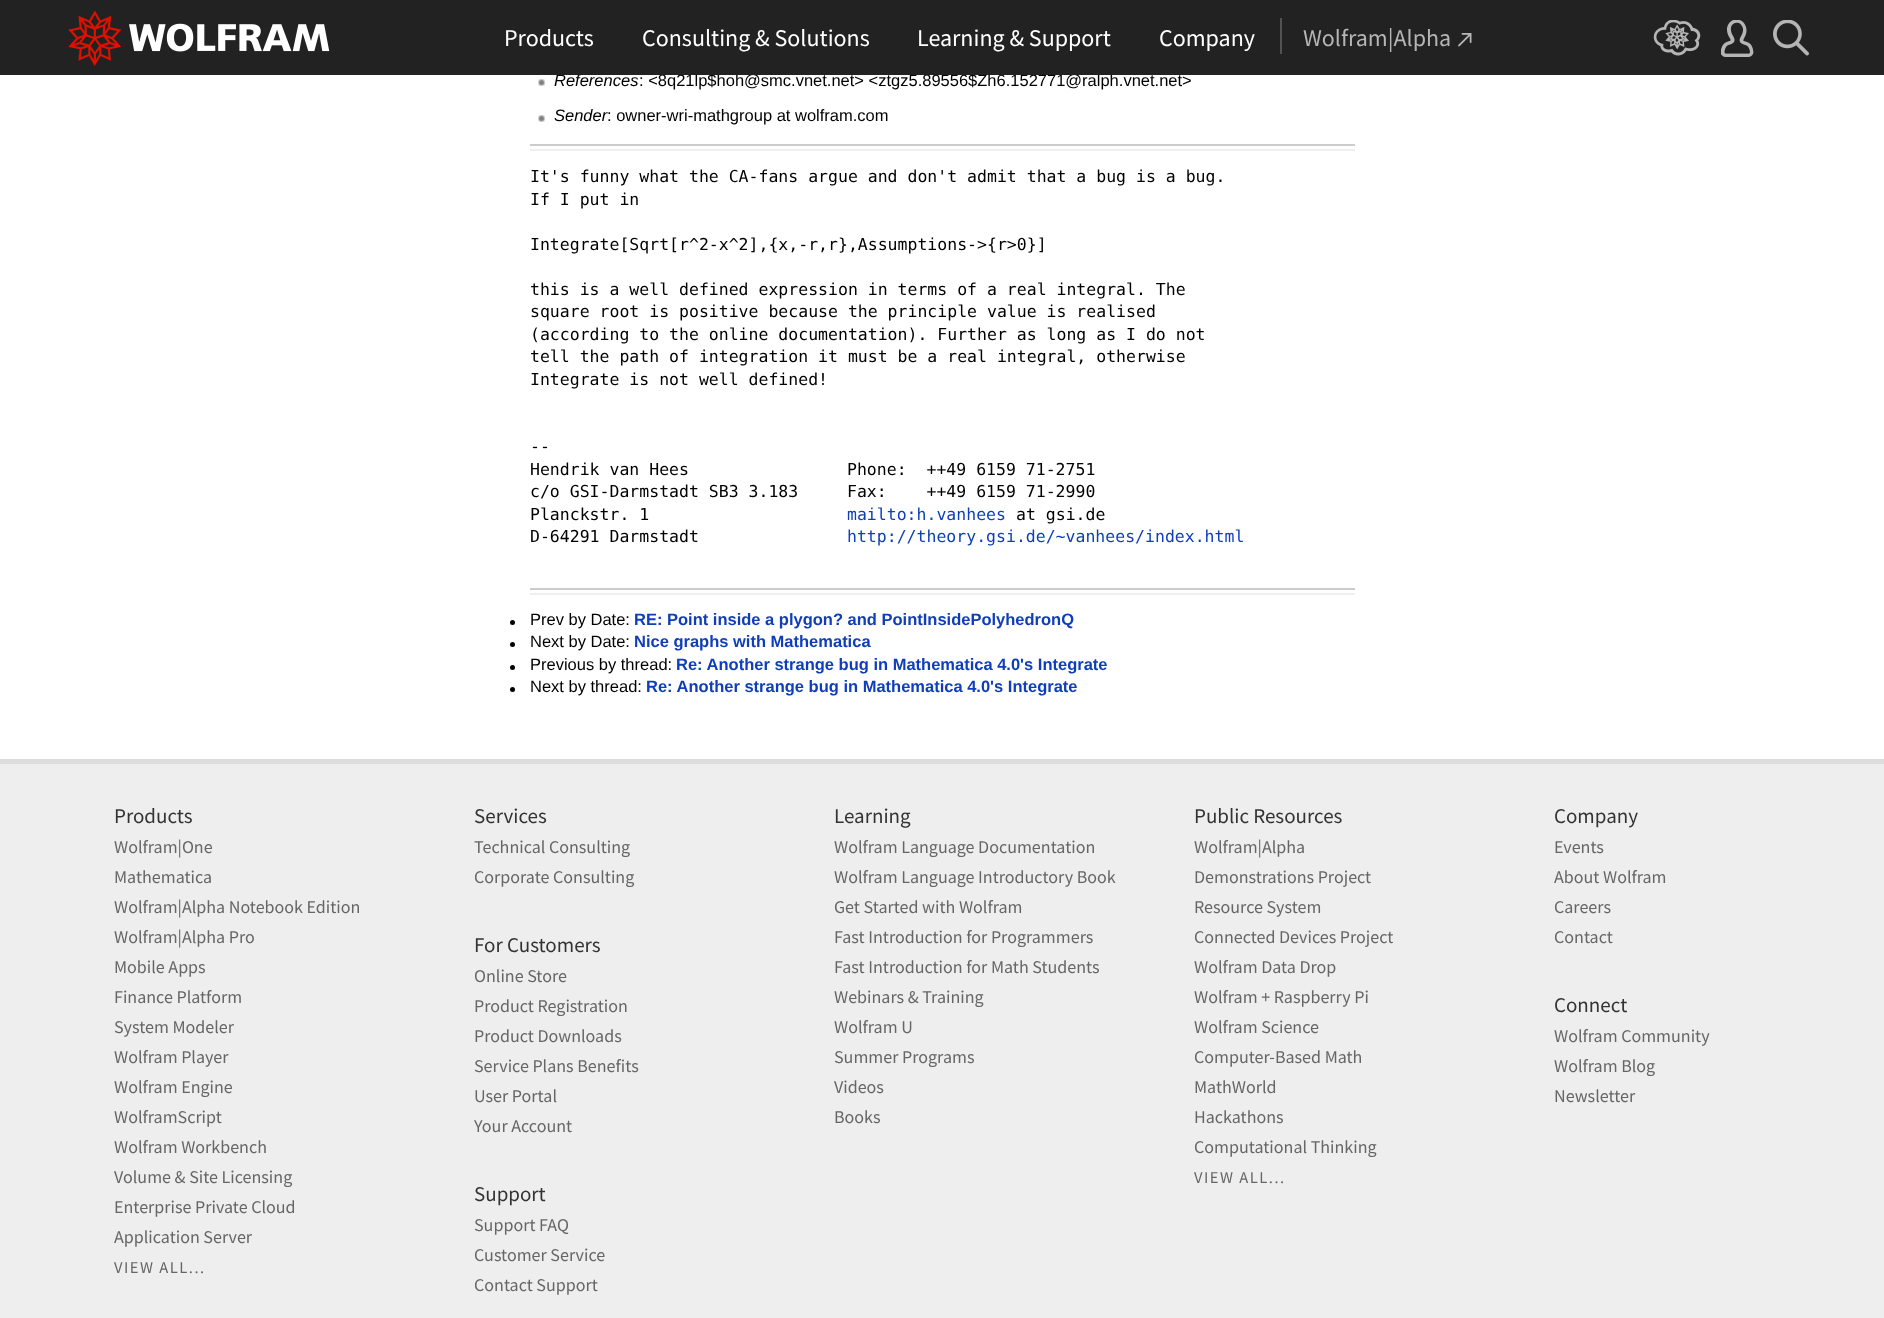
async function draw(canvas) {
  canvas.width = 1884
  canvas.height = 1318
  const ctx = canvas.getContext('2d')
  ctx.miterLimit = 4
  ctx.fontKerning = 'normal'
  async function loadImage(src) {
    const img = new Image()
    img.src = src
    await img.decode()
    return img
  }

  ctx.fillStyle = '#fff'
  ctx.fillRect(0, 0, 1884, 1318)
  ctx.font = 'italic 16.5px Liberation Sans'
  ctx.fillStyle = '#000'
  ctx.fillText('References', 554, 86)
  ctx.font = '16.5px Liberation Sans'
  ctx.fillText(': <8q21lp$hoh@smc.vnet.net> <ztgz5.89556$Zh6.152771@ralph.vnet.net>', 639, 86)
  ctx.fillStyle = '#222'
  ctx.fillRect(0, 0, 1884, 75)
  ctx.drawImage(await loadImage('image0.png'), 68, 11, 262, 55)
  ctx.font = '24px Source Sans Pro'
  ctx.fillStyle = '#fff'
  ctx.fillText('Products', 504, 46)
  ctx.fillText('Consulting & Solutions', 642, 46)
  ctx.fillText('Learning & Support', 917, 46)
  ctx.fillText('Company', 1159, 46)
  ctx.fillStyle = '#525252'
  ctx.fillRect(1280, 18, 2, 36)
  ctx.fillStyle = '#b5b5b5'
  ctx.fillText('Wolfram|Alpha', 1303, 46)
  ctx.drawImage(await loadImage('image1.png'), 1458, 33, 14, 14)
  ctx.drawImage(await loadImage('image2.png'), 1653, 20, 48, 36)
  ctx.drawImage(await loadImage('image3.png'), 1721, 20, 33, 37)
  ctx.drawImage(await loadImage('image4.png'), 1773, 20, 36, 36)
  ctx.drawImage(await loadImage('image5.png'), 538, 79, 7, 7)
  ctx.drawImage(await loadImage('image5.png'), 538, 115, 7, 7)
  ctx.font = 'italic 16.5px Liberation Sans'
  ctx.fillStyle = '#000'
  ctx.fillText('Sender', 554, 121)
  ctx.font = '16.5px Liberation Sans'
  ctx.fillText(': owner-wri-mathgroup at wolfram.com', 607, 121)
  ctx.fillStyle = '#ccc'
  ctx.fillRect(530, 144, 825, 2)
  ctx.fillStyle = '#efefef'
  ctx.fillRect(530, 149, 825, 2)
  ctx.font = '16.5px DejaVu Sans Mono'
  ctx.fillStyle = '#000'
  ctx.fillText('It\'s funny what the CA-fans argue and don\'t admit that a bug is a bug.', 530, 182)
  ctx.fillText('If I put in', 530, 205)
  ctx.fillText('Integrate[Sqrt[r^2-x^2],{x,-r,r},Assumptions->{r>0}]', 530, 250)
  ctx.fillText('this is a well defined expression in terms of a real integral. The', 530, 295)
  ctx.fillText('square root is positive because the principle value is realised', 530, 317)
  ctx.fillText('(according to the online documentation). Further as long as I do not', 530, 340)
  ctx.fillText('tell the path of integration it must be a real integral, otherwise', 530, 362)
  ctx.fillText('Integrate is not well defined!', 530, 385)
  ctx.fillText('--', 530, 452)
  ctx.fillText('Hendrik van Hees', 530, 475)
  ctx.fillText('Phone:  ++49 6159 71-2751', 847, 475)
  ctx.fillText('c/o GSI-Darmstadt SB3 3.183', 530, 497)
  ctx.fillText('Fax:    ++49 6159 71-2990', 847, 497)
  ctx.fillText('Planckstr. 1', 530, 520)
  ctx.fillStyle = '#0e3eb9'
  ctx.fillText('mailto:h.vanhees', 847, 520)
  ctx.fillStyle = '#000'
  ctx.fillText('at gsi.de', 1016, 520)
  ctx.fillText('D-64291 Darmstadt', 530, 542)
  ctx.fillStyle = '#0e3eb9'
  ctx.fillText('http://theory.gsi.de/~vanhees/index.html', 847, 542)
  ctx.fillStyle = '#ccc'
  ctx.fillRect(530, 588, 825, 2)
  ctx.fillStyle = '#efefef'
  ctx.fillRect(530, 593, 825, 2)
  ctx.fillStyle = '#000'
  ctx.beginPath()
  ctx.arc(512.5, 622.5, 2.5, 0, 2 * Math.PI)
  ctx.fill()
  ctx.font = '16.5px Liberation Sans'
  ctx.fillText('Prev by Date:', 530, 625)
  ctx.font = 'bold 16.5px Liberation Sans'
  ctx.fillStyle = '#0e3eb9'
  ctx.fillText('RE: Point inside a plygon? and PointInsidePolyhedronQ', 634, 625)
  ctx.fillStyle = '#000'
  ctx.beginPath()
  ctx.arc(512.5, 644.5, 2.5, 0, 2 * Math.PI)
  ctx.fill()
  ctx.font = '16.5px Liberation Sans'
  ctx.fillText('Next by Date:', 530, 647)
  ctx.font = 'bold 16.5px Liberation Sans'
  ctx.fillStyle = '#0e3eb9'
  ctx.fillText('Nice graphs with Mathematica', 634, 647)
  ctx.fillStyle = '#000'
  ctx.beginPath()
  ctx.arc(512.5, 667.5, 2.5, 0, 2 * Math.PI)
  ctx.fill()
  ctx.font = '16.5px Liberation Sans'
  ctx.fillText('Previous by thread:', 530, 670)
  ctx.font = 'bold 16.5px Liberation Sans'
  ctx.fillStyle = '#0e3eb9'
  ctx.fillText('Re: Another strange bug in Mathematica 4.0\'s Integrate', 676, 670)
  ctx.fillStyle = '#000'
  ctx.beginPath()
  ctx.arc(512.5, 689.5, 2.5, 0, 2 * Math.PI)
  ctx.fill()
  ctx.font = '16.5px Liberation Sans'
  ctx.fillText('Next by thread:', 530, 692)
  ctx.font = 'bold 16.5px Liberation Sans'
  ctx.fillStyle = '#0e3eb9'
  ctx.fillText('Re: Another strange bug in Mathematica 4.0\'s Integrate', 646, 692)
  ctx.fillStyle = '#eee'
  ctx.fillRect(0, 764, 1884, 554)
  ctx.fillStyle = '#ddd'
  ctx.fillRect(0, 759, 1884, 5)
  ctx.font = '21px Source Sans Pro'
  ctx.fillStyle = '#333'
  ctx.fillText('Products', 114, 823)
  ctx.font = '18px Source Sans Pro'
  ctx.fillStyle = '#666'
  ctx.fillText('Wolfram|One', 114, 853)
  ctx.fillText('Mathematica', 114, 883)
  ctx.fillText('Wolfram|Alpha Notebook Edition', 114, 913)
  ctx.fillText('Wolfram|Alpha Pro', 114, 943)
  ctx.fillText('Mobile Apps', 114, 973)
  ctx.fillText('Finance Platform', 114, 1003)
  ctx.fillText('System Modeler', 114, 1033)
  ctx.fillText('Wolfram Player', 114, 1063)
  ctx.fillText('Wolfram Engine', 114, 1093)
  ctx.fillText('WolframScript', 114, 1123)
  ctx.fillText('Wolfram Workbench', 114, 1153)
  ctx.fillText('Volume & Site Licensing', 114, 1183)
  ctx.fillText('Enterprise Private Cloud', 114, 1213)
  ctx.fillText('Application Server', 114, 1243)
  ctx.letterSpacing = '1.5px'
  ctx.font = '16.5px Source Sans Pro'
  ctx.fillText('VIEW ALL...', 114, 1273)
  ctx.letterSpacing = '0px'
  ctx.font = '21px Source Sans Pro'
  ctx.fillStyle = '#333'
  ctx.fillText('Services', 474, 823)
  ctx.font = '18px Source Sans Pro'
  ctx.fillStyle = '#666'
  ctx.fillText('Technical Consulting', 474, 853)
  ctx.fillText('Corporate Consulting', 474, 883)
  ctx.font = '21px Source Sans Pro'
  ctx.fillStyle = '#333'
  ctx.fillText('For Customers', 474, 952)
  ctx.font = '18px Source Sans Pro'
  ctx.fillStyle = '#666'
  ctx.fillText('Online Store', 474, 982)
  ctx.fillText('Product Registration', 474, 1012)
  ctx.fillText('Product Downloads', 474, 1042)
  ctx.fillText('Service Plans Benefits', 474, 1072)
  ctx.fillText('User Portal', 474, 1102)
  ctx.fillText('Your Account', 474, 1132)
  ctx.font = '21px Source Sans Pro'
  ctx.fillStyle = '#333'
  ctx.fillText('Support', 474, 1201)
  ctx.font = '18px Source Sans Pro'
  ctx.fillStyle = '#666'
  ctx.fillText('Support FAQ', 474, 1231)
  ctx.fillText('Customer Service', 474, 1261)
  ctx.fillText('Contact Support', 474, 1291)
  ctx.font = '21px Source Sans Pro'
  ctx.fillStyle = '#333'
  ctx.fillText('Learning', 834, 823)
  ctx.font = '18px Source Sans Pro'
  ctx.fillStyle = '#666'
  ctx.fillText('Wolfram Language Documentation', 834, 853)
  ctx.fillText('Wolfram Language Introductory Book', 834, 883)
  ctx.fillText('Get Started with Wolfram', 834, 913)
  ctx.fillText('Fast Introduction for Programmers', 834, 943)
  ctx.fillText('Fast Introduction for Math Students', 834, 973)
  ctx.fillText('Webinars & Training', 834, 1003)
  ctx.fillText('Wolfram U', 834, 1033)
  ctx.fillText('Summer Programs', 834, 1063)
  ctx.fillText('Videos', 834, 1093)
  ctx.fillText('Books', 834, 1123)
  ctx.font = '21px Source Sans Pro'
  ctx.fillStyle = '#333'
  ctx.fillText('Public Resources', 1194, 823)
  ctx.font = '18px Source Sans Pro'
  ctx.fillStyle = '#666'
  ctx.fillText('Wolfram|Alpha', 1194, 853)
  ctx.fillText('Demonstrations Project', 1194, 883)
  ctx.fillText('Resource System', 1194, 913)
  ctx.fillText('Connected Devices Project', 1194, 943)
  ctx.fillText('Wolfram Data Drop', 1194, 973)
  ctx.fillText('Wolfram + Raspberry Pi', 1194, 1003)
  ctx.fillText('Wolfram Science', 1194, 1033)
  ctx.fillText('Computer-Based Math', 1194, 1063)
  ctx.fillText('MathWorld', 1194, 1093)
  ctx.fillText('Hackathons', 1194, 1123)
  ctx.fillText('Computational Thinking', 1194, 1153)
  ctx.letterSpacing = '1.5px'
  ctx.font = '16.5px Source Sans Pro'
  ctx.fillText('VIEW ALL...', 1194, 1183)
  ctx.letterSpacing = '0px'
  ctx.font = '21px Source Sans Pro'
  ctx.fillStyle = '#333'
  ctx.fillText('Company', 1554, 823)
  ctx.font = '18px Source Sans Pro'
  ctx.fillStyle = '#666'
  ctx.fillText('Events', 1554, 853)
  ctx.fillText('About Wolfram', 1554, 883)
  ctx.fillText('Careers', 1554, 913)
  ctx.fillText('Contact', 1554, 943)
  ctx.font = '21px Source Sans Pro'
  ctx.fillStyle = '#333'
  ctx.fillText('Connect', 1554, 1012)
  ctx.font = '18px Source Sans Pro'
  ctx.fillStyle = '#666'
  ctx.fillText('Wolfram Community', 1554, 1042)
  ctx.fillText('Wolfram Blog', 1554, 1072)
  ctx.fillText('Newsletter', 1554, 1102)
}

draw(document.querySelector('canvas'))
